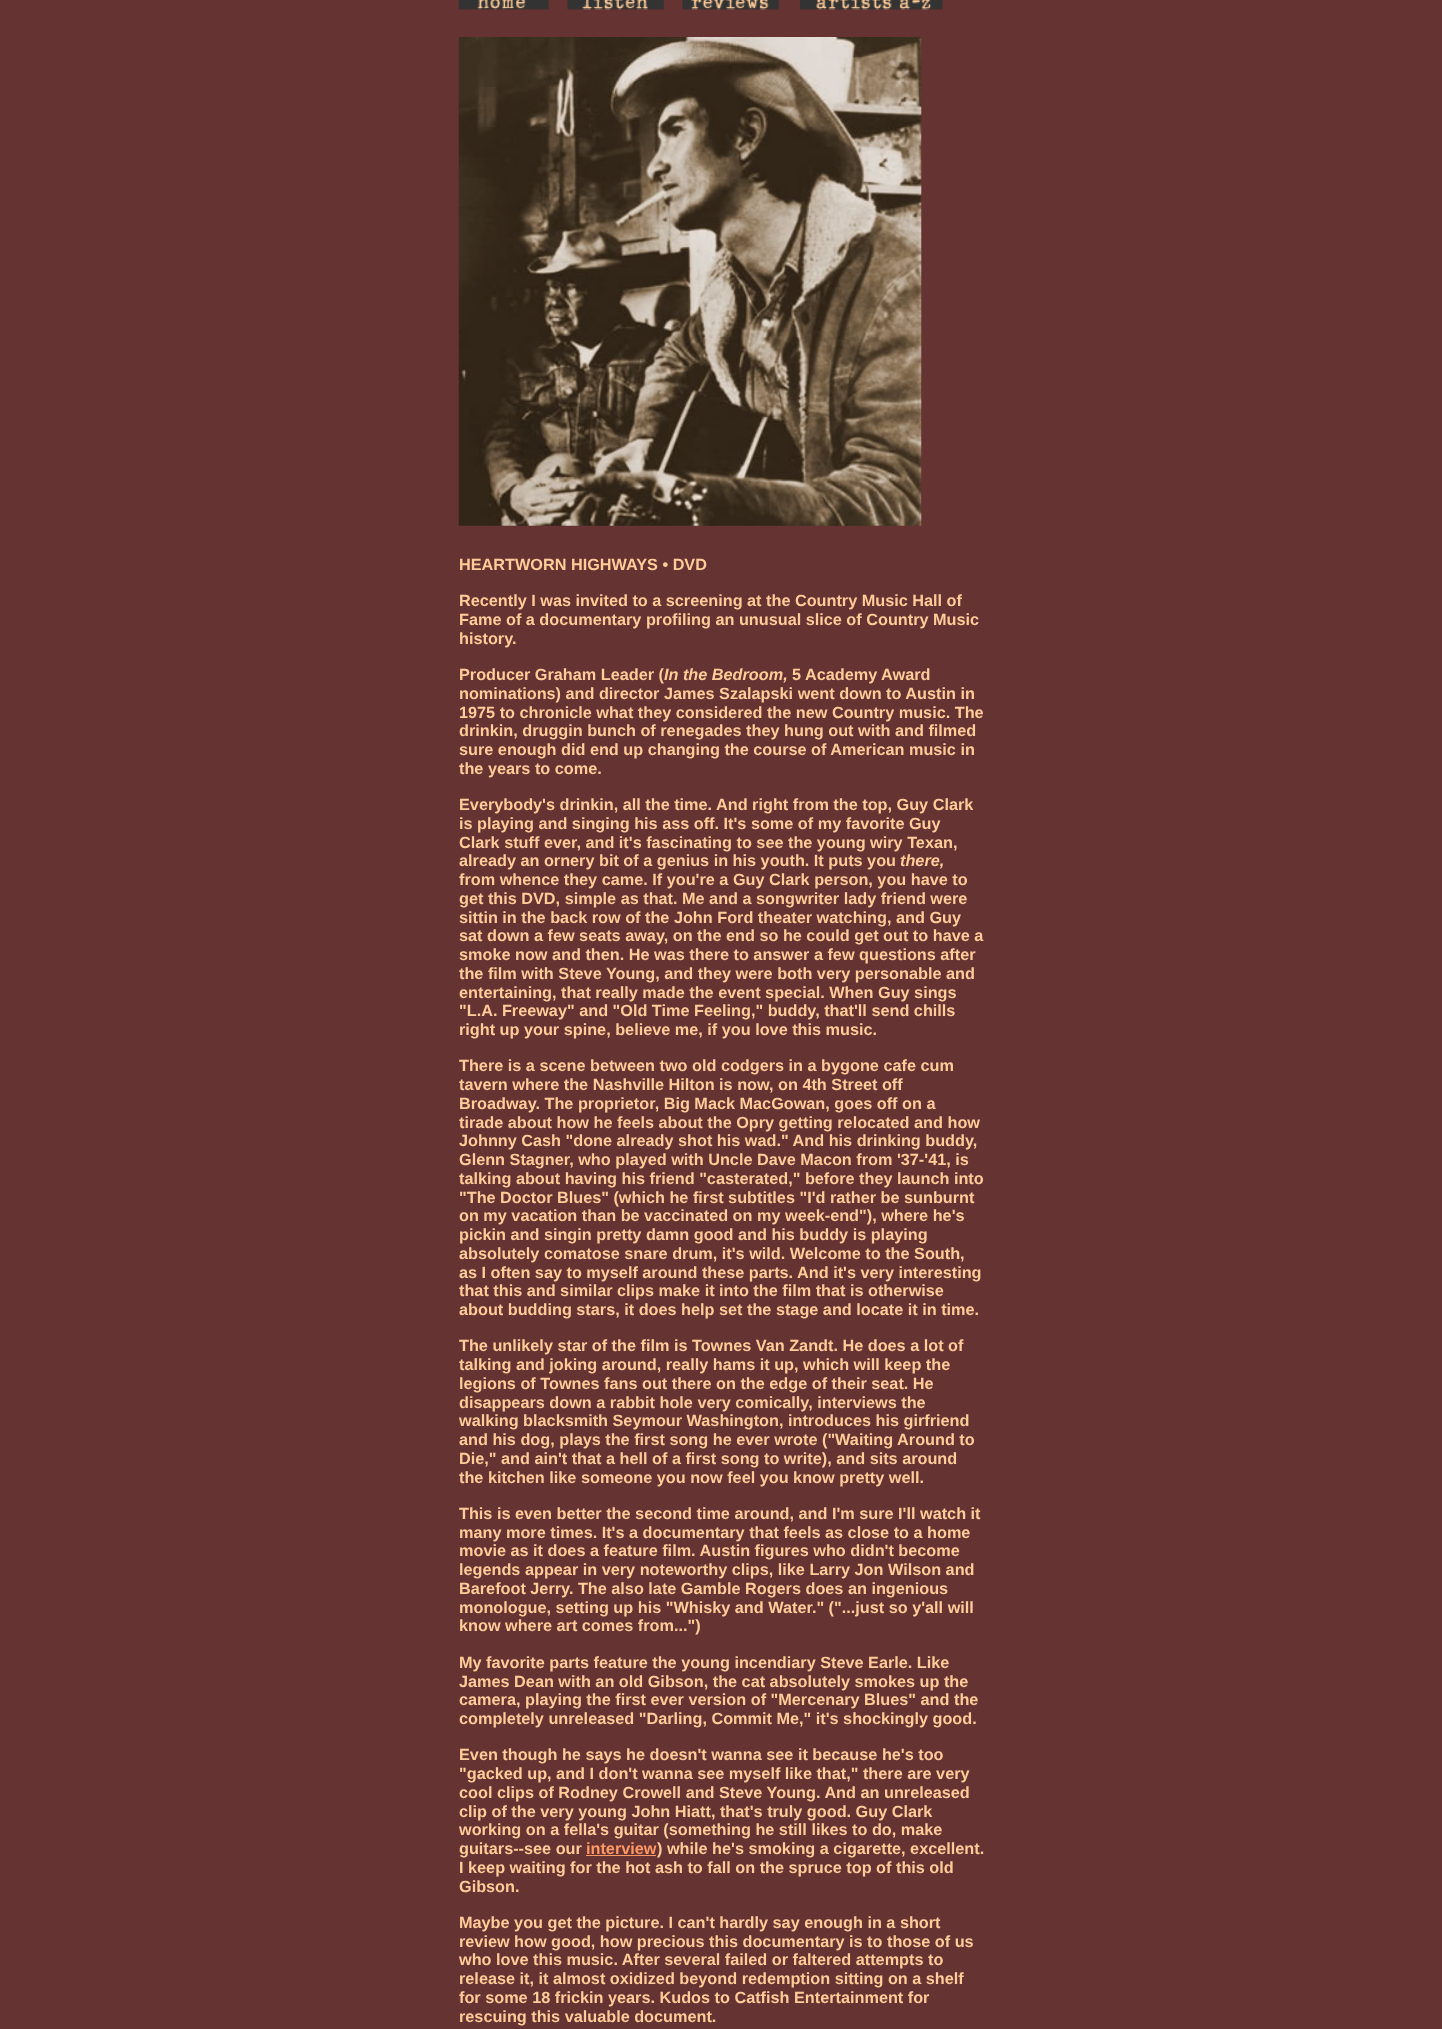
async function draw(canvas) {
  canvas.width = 1442
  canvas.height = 2029
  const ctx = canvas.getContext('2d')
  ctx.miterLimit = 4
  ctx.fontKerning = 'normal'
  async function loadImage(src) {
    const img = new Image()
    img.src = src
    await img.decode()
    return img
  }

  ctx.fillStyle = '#633'
  ctx.fillRect(0, 0, 1442, 2029)
  ctx.drawImage(await loadImage('image0.png'), 458, 0, 91, 9)
  ctx.fillStyle = '#483232'
  ctx.fillRect(548, 0, 1, 8)
  ctx.drawImage(await loadImage('image1.png'), 567, 0, 97, 9)
  ctx.drawImage(await loadImage('image2.png'), 682, 0, 97, 9)
  ctx.drawImage(await loadImage('image3.png'), 800, 0, 143, 9)
  ctx.drawImage(await loadImage('image4.png'), 458, 8, 91, 2)
  ctx.drawImage(await loadImage('image5.png'), 567, 8, 97, 2)
  ctx.drawImage(await loadImage('image6.png'), 682, 8, 97, 2)
  ctx.drawImage(await loadImage('image7.png'), 800, 8, 143, 2)
  ctx.drawImage(await loadImage('image8.png'), 458, 37, 464, 489)
  ctx.font = 'bold 16.25px Liberation Sans'
  ctx.fillStyle = '#fc9'
  ctx.fillText('HEARTWORN HIGHWAYS • DVD', 459, 570)
  ctx.fillText('Recently I was invited to a screening at the Country Music Hall of', 459, 606)
  ctx.fillText('Fame of a documentary profiling an unusual slice of Country Music', 459, 625)
  ctx.fillText('history.', 459, 644)
  ctx.fillText('Producer Graham Leader (', 459, 680)
  ctx.font = 'italic bold 16.25px Liberation Sans'
  ctx.fillText('In the Bedroom,', 664, 680)
  ctx.font = 'bold 16.25px Liberation Sans'
  ctx.fillText('5 Academy Award', 792, 680)
  ctx.fillText('nominations) and director James Szalapski went down to Austin in', 459, 699)
  ctx.fillText('1975 to chronicle what they considered the new Country music. The', 459, 718)
  ctx.fillText('drinkin, druggin bunch of renegades they hung out with and filmed', 459, 736)
  ctx.fillText('sure enough did end up changing the course of American music in', 459, 755)
  ctx.fillText('the years to come.', 459, 774)
  ctx.fillText('Everybody\'s drinkin, all the time. And right from the top, Guy Clark', 459, 810)
  ctx.fillText('is playing and singing his ass off. It\'s some of my favorite Guy', 459, 829)
  ctx.fillText('Clark stuff ever, and it\'s fascinating to see the young wiry Texan,', 459, 848)
  ctx.fillText('already an ornery bit of a genius in his youth. It puts you', 459, 866)
  ctx.font = 'italic bold 16.25px Liberation Sans'
  ctx.fillText('there,', 900, 866)
  ctx.font = 'bold 16.25px Liberation Sans'
  ctx.fillText('from whence they came. If you\'re a Guy Clark person, you have to', 459, 885)
  ctx.fillText('get this DVD, simple as that. Me and a songwriter lady friend were', 459, 904)
  ctx.fillText('sittin in the back row of the John Ford theater watching, and Guy', 459, 923)
  ctx.fillText('sat down a few seats away, on the end so he could get out to have a', 459, 941)
  ctx.fillText('smoke now and then. He was there to answer a few questions after', 459, 960)
  ctx.fillText('the film with Steve Young, and they were both very personable and', 459, 979)
  ctx.fillText('entertaining, that really made the event special. When Guy sings', 459, 998)
  ctx.fillText('"L.A. Freeway" and "Old Time Feeling," buddy, that\'ll send chills', 459, 1016)
  ctx.fillText('right up your spine, believe me, if you love this music.', 459, 1035)
  ctx.fillText('There is a scene between two old codgers in a bygone cafe cum', 459, 1071)
  ctx.fillText('tavern where the Nashville Hilton is now, on 4th Street off', 459, 1090)
  ctx.fillText('Broadway. The proprietor, Big Mack MacGowan, goes off on a', 459, 1109)
  ctx.fillText('tirade about how he feels about the Opry getting relocated and how', 459, 1128)
  ctx.fillText('Johnny Cash "done already shot his wad." And his drinking buddy,', 459, 1146)
  ctx.fillText('Glenn Stagner, who played with Uncle Dave Macon from \'37-\'41, is', 459, 1165)
  ctx.fillText('talking about having his friend "casterated," before they launch into', 459, 1184)
  ctx.fillText('"The Doctor Blues" (which he first subtitles "I\'d rather be sunburnt', 459, 1203)
  ctx.fillText('on my vacation than be vaccinated on my week-end"), where he\'s', 459, 1221)
  ctx.fillText('pickin and singin pretty damn good and his buddy is playing', 459, 1240)
  ctx.fillText('absolutely comatose snare drum, it\'s wild. Welcome to the South,', 459, 1259)
  ctx.fillText('as I often say to myself around these parts. And it\'s very interesting', 459, 1278)
  ctx.fillText('that this and similar clips make it into the film that is otherwise', 459, 1296)
  ctx.fillText('about budding stars, it does help set the stage and locate it in time.', 459, 1315)
  ctx.fillText('The unlikely star of the film is Townes Van Zandt. He does a lot of', 459, 1351)
  ctx.fillText('talking and joking around, really hams it up, which will keep the', 459, 1370)
  ctx.fillText('legions of Townes fans out there on the edge of their seat. He', 459, 1389)
  ctx.fillText('disappears down a rabbit hole very comically, interviews the', 459, 1408)
  ctx.fillText('walking blacksmith Seymour Washington, introduces his girfriend', 459, 1426)
  ctx.fillText('and his dog, plays the first song he ever wrote ("Waiting Around to', 459, 1445)
  ctx.fillText('Die," and ain\'t that a hell of a first song to write), and sits around', 459, 1464)
  ctx.fillText('the kitchen like someone you now feel you know pretty well.', 459, 1483)
  ctx.fillText('This is even better the second time around, and I\'m sure I\'ll watch it', 459, 1519)
  ctx.fillText('many more times. It\'s a documentary that feels as close to a home', 459, 1538)
  ctx.fillText('movie as it does a feature film. Austin figures who didn\'t become', 459, 1556)
  ctx.fillText('legends appear in very noteworthy clips, like Larry Jon Wilson and', 459, 1575)
  ctx.fillText('Barefoot Jerry. The also late Gamble Rogers does an ingenious', 459, 1594)
  ctx.fillText('monologue, setting up his "Whisky and Water." ("...just so y\'all will', 459, 1613)
  ctx.fillText('know where art comes from...")', 459, 1631)
  ctx.fillText('My favorite parts feature the young incendiary Steve Earle. Like', 459, 1668)
  ctx.fillText('James Dean with an old Gibson, the cat absolutely smokes up the', 459, 1687)
  ctx.fillText('camera, playing the first ever version of "Mercenary Blues" and the', 459, 1705)
  ctx.fillText('completely unreleased "Darling, Commit Me," it\'s shockingly good.', 459, 1724)
  ctx.fillText('Even though he says he doesn\'t wanna see it because he\'s too', 459, 1760)
  ctx.fillText('"gacked up, and I don\'t wanna see myself like that," there are very', 459, 1779)
  ctx.fillText('cool clips of Rodney Crowell and Steve Young. And an unreleased', 459, 1798)
  ctx.fillText('clip of the very young John Hiatt, that\'s truly good. Guy Clark', 459, 1817)
  ctx.fillText('working on a fella\'s guitar (something he still likes to do, make', 459, 1835)
  ctx.fillText('guitars--see our', 459, 1854)
  ctx.fillStyle = '#f96'
  ctx.fillText('interview', 586, 1854)
  ctx.fillStyle = '#fc9'
  ctx.fillText(') while he\'s smoking a cigarette, excellent.', 657, 1854)
  ctx.fillStyle = '#f96'
  ctx.fillRect(586, 1855, 70, 1)
  ctx.fillStyle = '#fc9'
  ctx.fillText('I keep waiting for the hot ash to fall on the spruce top of this old', 459, 1873)
  ctx.fillText('Gibson.', 459, 1892)
  ctx.fillText('Maybe you get the picture. I can\'t hardly say enough in a short', 459, 1928)
  ctx.fillText('review how good, how precious this documentary is to those of us', 459, 1947)
  ctx.fillText('who love this music. After several failed or faltered attempts to', 459, 1965)
  ctx.fillText('release it, it almost oxidized beyond redemption sitting on a shelf', 459, 1984)
  ctx.fillText('for some 18 frickin years. Kudos to Catfish Entertainment for', 459, 2003)
  ctx.fillText('rescuing this valuable document.', 459, 2022)
}

draw(document.querySelector('canvas'))
